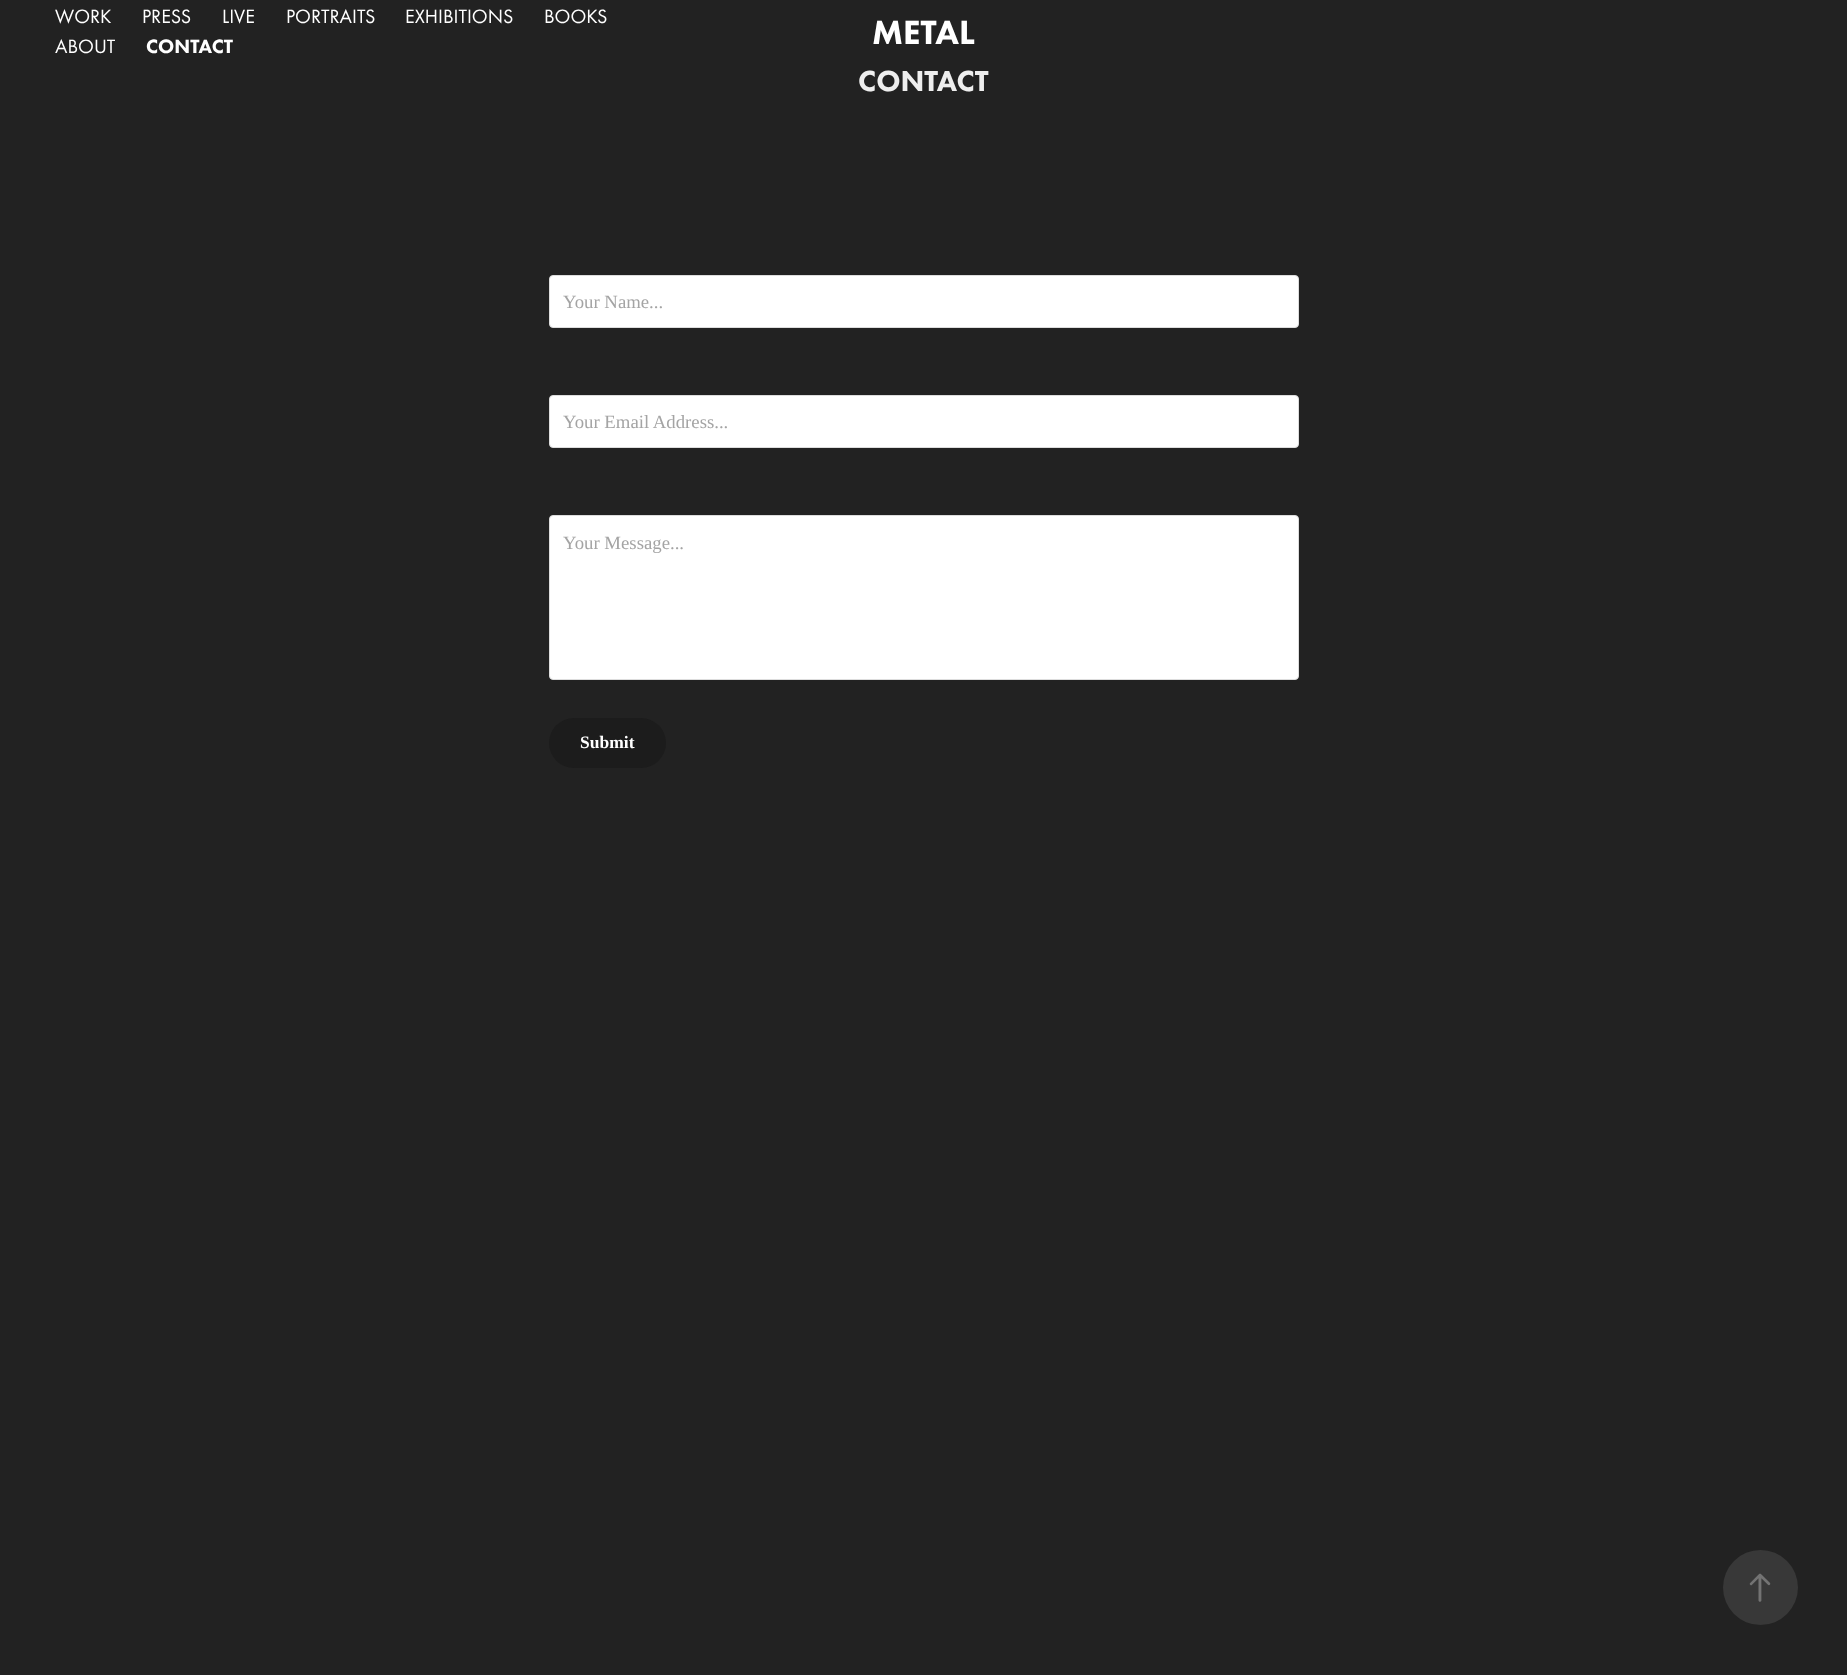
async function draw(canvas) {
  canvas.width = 1847
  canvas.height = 1675
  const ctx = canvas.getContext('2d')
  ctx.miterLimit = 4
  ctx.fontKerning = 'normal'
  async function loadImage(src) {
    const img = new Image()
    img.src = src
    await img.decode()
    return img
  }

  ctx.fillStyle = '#222'
  ctx.fillRect(0, 0, 1847, 1675)
  ctx.font = '20px Futura PT'
  ctx.fillStyle = '#fff'
  ctx.fillText('WORK', 55, 23)
  ctx.fillText('PRESS', 142, 23)
  ctx.fillText('LIVE', 222, 23)
  ctx.fillText('PORTRAITS', 286, 23)
  ctx.fillText('EXHIBITIONS', 405, 23)
  ctx.fillText('BOOKS', 544, 23)
  ctx.fillText('ABOUT', 55, 53)
  ctx.font = '900 20px Futura PT'
  ctx.fillText('CONTACT', 146, 53)
  ctx.font = '900 35px Futura PT'
  ctx.fillText('METAL', 872, 44)
  ctx.font = '900 30px Futura PT'
  ctx.fillStyle = '#eee'
  ctx.fillText('CONTACT', 858, 91)
  ctx.fillStyle = '#fff'
  ctx.beginPath()
  ctx.roundRect(549.5, 275.5, 749, 52, 3.5)
  ctx.fill()
  ctx.strokeStyle = '#ddd'
  ctx.stroke()
  ctx.font = '18.75px Liberation Serif'
  ctx.fillStyle = '#a4a4a4'
  ctx.fillText('Your Name...', 563, 308)
  ctx.fillStyle = '#fff'
  ctx.beginPath()
  ctx.roundRect(549.5, 395.5, 749, 52, 3.5)
  ctx.fill()
  ctx.stroke()
  ctx.fillStyle = '#a4a4a4'
  ctx.fillText('Your Email Address...', 563, 428)
  ctx.fillStyle = '#fff'
  ctx.beginPath()
  ctx.roundRect(549.5, 515.5, 749, 164, 3.5)
  ctx.fill()
  ctx.stroke()
  ctx.fillStyle = '#a4a4a4'
  ctx.fillText('Your Message...', 563, 549)
  ctx.fillStyle = '#1c1c1c'
  ctx.beginPath()
  ctx.roundRect(549, 718, 117, 50, 25)
  ctx.fill()
  ctx.font = 'bold 17.5px Liberation Serif'
  ctx.fillStyle = '#fff'
  ctx.fillText('Submit', 580, 748)
  ctx.fillStyle = '#383838'
  ctx.beginPath()
  ctx.arc(1760.5, 1587.5, 37.5, 0, 2 * Math.PI)
  ctx.fill()
  ctx.drawImage(await loadImage('image0.png'), 1749, 1573, 22, 29)
}

draw(document.querySelector('canvas'))
